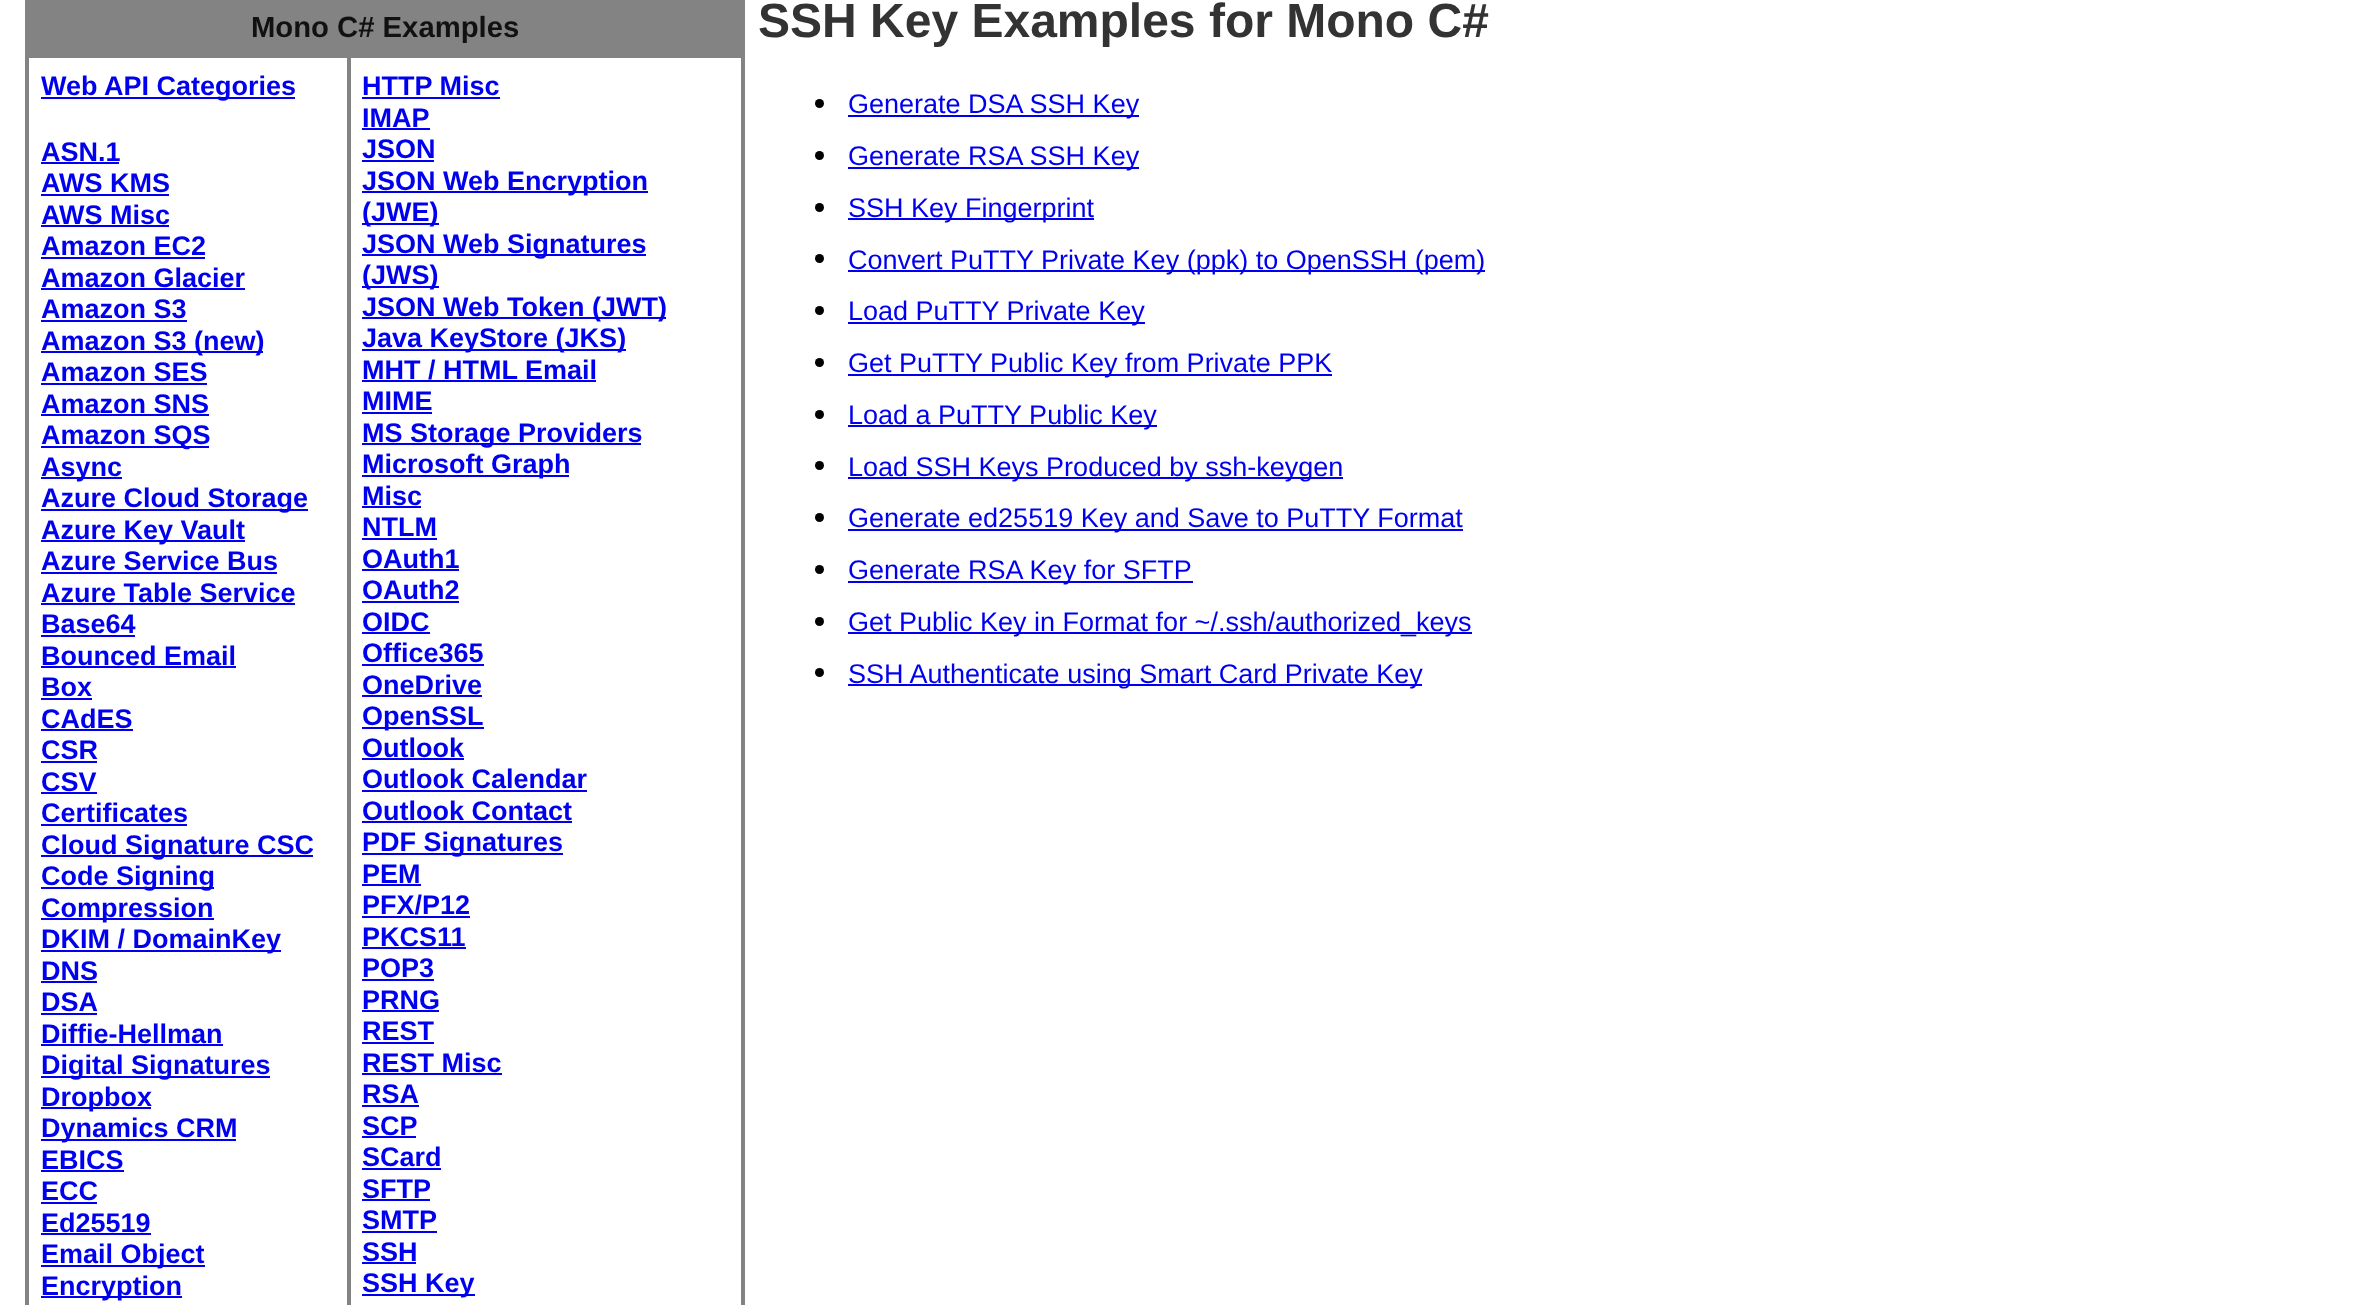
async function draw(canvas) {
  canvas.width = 2365
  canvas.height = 1305
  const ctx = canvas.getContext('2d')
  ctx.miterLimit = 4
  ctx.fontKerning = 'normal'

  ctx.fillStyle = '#fff'
  ctx.fillRect(0, 0, 2365, 1305)
  ctx.strokeStyle = '#838383'
  ctx.lineWidth = 2
  ctx.strokeRect(26, -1, 718, 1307)
  ctx.fillStyle = '#838383'
  ctx.fillRect(27, 0, 716, 56)
  ctx.font = 'bold 29.25px Liberation Sans'
  ctx.fillStyle = '#111'
  ctx.fillText('Mono C# Examples', 251, 37)
  ctx.strokeRect(28, 57, 320, 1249)
  ctx.fillStyle = '#00e'
  ctx.fillRect(41, 97, 254, 2)
  ctx.font = 'bold 27px Liberation Sans'
  ctx.fillText('Web API Categories', 41, 95)
  ctx.fillText('ASN.1', 41, 161)
  ctx.fillRect(41, 162, 78, 2)
  ctx.fillText('AWS KMS', 41, 192)
  ctx.fillRect(41, 194, 128, 2)
  ctx.fillText('AWS Misc', 41, 224)
  ctx.fillRect(41, 225, 128, 2)
  ctx.fillText('Amazon EC2', 41, 255)
  ctx.fillRect(41, 257, 164, 2)
  ctx.fillText('Amazon Glacier', 41, 287)
  ctx.fillRect(41, 288, 204, 2)
  ctx.fillText('Amazon S3', 41, 318)
  ctx.fillRect(41, 320, 146, 2)
  ctx.fillRect(41, 351, 222, 2)
  ctx.fillText('Amazon S3 (new)', 41, 350)
  ctx.fillText('Amazon SES', 41, 381)
  ctx.fillRect(41, 383, 166, 2)
  ctx.fillText('Amazon SNS', 41, 413)
  ctx.fillRect(41, 414, 168, 2)
  ctx.fillRect(41, 446, 168, 2)
  ctx.fillText('Amazon SQS', 41, 444)
  ctx.fillRect(41, 477, 81, 2)
  ctx.fillText('Async', 41, 476)
  ctx.fillRect(41, 509, 267, 2)
  ctx.fillText('Azure Cloud Storage', 41, 507)
  ctx.fillRect(41, 540, 204, 2)
  ctx.fillText('Azure Key Vault', 41, 539)
  ctx.fillText('Azure Service Bus', 41, 570)
  ctx.fillRect(41, 572, 236, 2)
  ctx.fillText('Azure Table Service', 41, 602)
  ctx.fillRect(41, 603, 254, 2)
  ctx.fillText('Base64', 41, 633)
  ctx.fillRect(41, 635, 94, 2)
  ctx.fillText('Bounced Email', 41, 665)
  ctx.fillRect(41, 666, 195, 2)
  ctx.fillText('Box', 41, 696)
  ctx.fillRect(41, 698, 51, 2)
  ctx.fillText('CAdES', 41, 728)
  ctx.fillRect(41, 729, 92, 2)
  ctx.fillText('CSR', 41, 759)
  ctx.fillRect(41, 761, 56, 2)
  ctx.fillText('CSV', 41, 791)
  ctx.fillRect(41, 792, 56, 2)
  ctx.fillText('Certificates', 41, 822)
  ctx.fillRect(41, 824, 146, 2)
  ctx.fillRect(41, 855, 272, 2)
  ctx.fillText('Cloud Signature CSC', 41, 854)
  ctx.fillRect(41, 887, 173, 2)
  ctx.fillText('Code Signing', 41, 885)
  ctx.fillRect(41, 918, 173, 2)
  ctx.fillText('Compression', 41, 917)
  ctx.fillRect(41, 950, 240, 2)
  ctx.fillText('DKIM / DomainKey', 41, 948)
  ctx.fillText('DNS', 41, 980)
  ctx.fillRect(41, 981, 56, 2)
  ctx.fillText('DSA', 41, 1011)
  ctx.fillRect(41, 1013, 56, 2)
  ctx.fillText('Diffie-Hellman', 41, 1043)
  ctx.fillRect(41, 1044, 182, 2)
  ctx.fillRect(41, 1076, 229, 2)
  ctx.fillText('Digital Signatures', 41, 1074)
  ctx.fillRect(41, 1107, 110, 2)
  ctx.fillText('Dropbox', 41, 1106)
  ctx.fillRect(41, 1139, 195, 2)
  ctx.fillText('Dynamics CRM', 41, 1137)
  ctx.fillText('EBICS', 41, 1169)
  ctx.fillRect(41, 1170, 83, 2)
  ctx.fillText('ECC', 41, 1200)
  ctx.fillRect(41, 1202, 56, 2)
  ctx.fillText('Ed25519', 41, 1232)
  ctx.fillRect(41, 1233, 110, 2)
  ctx.fillRect(41, 1265, 164, 2)
  ctx.fillText('Email Object', 41, 1263)
  ctx.fillRect(41, 1296, 141, 2)
  ctx.fillText('Encryption', 41, 1295)
  ctx.strokeRect(350, 57, 392, 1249)
  ctx.fillText('HTTP Misc', 362, 95)
  ctx.fillRect(362, 97, 138, 2)
  ctx.fillText('IMAP', 362, 127)
  ctx.fillRect(362, 128, 68, 2)
  ctx.fillText('JSON', 362, 158)
  ctx.fillRect(362, 160, 72, 2)
  ctx.fillRect(362, 191, 286, 2)
  ctx.fillText('JSON Web Encryption', 362, 190)
  ctx.fillRect(362, 223, 77, 2)
  ctx.fillText('(JWE)', 362, 221)
  ctx.fillRect(362, 254, 284, 2)
  ctx.fillText('JSON Web Signatures', 362, 253)
  ctx.fillRect(362, 286, 77, 2)
  ctx.fillText('(JWS)', 362, 284)
  ctx.fillRect(362, 317, 304, 2)
  ctx.fillText('JSON Web Token (JWT)', 362, 316)
  ctx.fillRect(362, 349, 264, 2)
  ctx.fillText('Java KeyStore (JKS)', 362, 347)
  ctx.fillText('MHT / HTML Email', 362, 379)
  ctx.fillRect(362, 380, 234, 2)
  ctx.fillText('MIME', 362, 410)
  ctx.fillRect(362, 412, 70, 2)
  ctx.fillRect(362, 443, 279, 2)
  ctx.fillText('MS Storage Providers', 362, 442)
  ctx.fillRect(362, 475, 207, 2)
  ctx.fillText('Microsoft Graph', 362, 473)
  ctx.fillText('Misc', 362, 505)
  ctx.fillRect(362, 506, 59, 2)
  ctx.fillText('NTLM', 362, 536)
  ctx.fillRect(362, 538, 75, 2)
  ctx.fillText('OAuth1', 362, 568)
  ctx.fillRect(362, 569, 97, 2)
  ctx.fillText('OAuth2', 362, 599)
  ctx.fillRect(362, 601, 97, 2)
  ctx.fillText('OIDC', 362, 631)
  ctx.fillRect(362, 632, 68, 2)
  ctx.fillText('Office365', 362, 662)
  ctx.fillRect(362, 664, 122, 2)
  ctx.fillText('OneDrive', 362, 694)
  ctx.fillRect(362, 695, 120, 2)
  ctx.fillRect(362, 727, 122, 2)
  ctx.fillText('OpenSSL', 362, 725)
  ctx.fillText('Outlook', 362, 757)
  ctx.fillRect(362, 758, 102, 2)
  ctx.fillText('Outlook Calendar', 362, 788)
  ctx.fillRect(362, 790, 225, 2)
  ctx.fillText('Outlook Contact', 362, 820)
  ctx.fillRect(362, 821, 210, 2)
  ctx.fillRect(362, 853, 201, 2)
  ctx.fillText('PDF Signatures', 362, 851)
  ctx.fillText('PEM', 362, 883)
  ctx.fillRect(362, 884, 59, 2)
  ctx.fillText('PFX/P12', 362, 914)
  ctx.fillRect(362, 916, 108, 2)
  ctx.fillText('PKCS11', 362, 946)
  ctx.fillRect(362, 947, 104, 2)
  ctx.fillText('POP3', 362, 977)
  ctx.fillRect(362, 979, 72, 2)
  ctx.fillText('PRNG', 362, 1009)
  ctx.fillRect(362, 1010, 77, 2)
  ctx.fillText('REST', 362, 1040)
  ctx.fillRect(362, 1042, 72, 2)
  ctx.fillText('REST Misc', 362, 1072)
  ctx.fillRect(362, 1073, 140, 2)
  ctx.fillText('RSA', 362, 1103)
  ctx.fillRect(362, 1105, 57, 2)
  ctx.fillText('SCP', 362, 1135)
  ctx.fillRect(362, 1136, 54, 2)
  ctx.fillText('SCard', 362, 1166)
  ctx.fillRect(362, 1168, 79, 2)
  ctx.fillText('SFTP', 362, 1198)
  ctx.fillRect(362, 1199, 68, 2)
  ctx.fillText('SMTP', 362, 1229)
  ctx.fillRect(362, 1231, 75, 2)
  ctx.fillText('SSH', 362, 1261)
  ctx.fillRect(362, 1262, 54, 2)
  ctx.fillRect(362, 1294, 113, 2)
  ctx.fillText('SSH Key', 362, 1292)
  ctx.font = 'bold 48px Liberation Sans'
  ctx.fillStyle = '#333'
  ctx.fillText('SSH Key Examples for Mono C#', 758, 37)
  ctx.fillStyle = '#000'
  ctx.beginPath()
  ctx.arc(819.5, 103.5, 4.5, 0, 2 * Math.PI)
  ctx.fill()
  ctx.fillStyle = '#00e'
  ctx.fillRect(848, 115, 291, 2)
  ctx.font = '27px Liberation Sans'
  ctx.fillText('Generate DSA SSH Key', 848, 113)
  ctx.fillStyle = '#000'
  ctx.beginPath()
  ctx.arc(819.5, 155.5, 4.5, 0, 2 * Math.PI)
  ctx.fill()
  ctx.fillStyle = '#00e'
  ctx.fillRect(848, 167, 291, 2)
  ctx.fillText('Generate RSA SSH Key', 848, 165)
  ctx.fillStyle = '#000'
  ctx.beginPath()
  ctx.arc(819.5, 207.5, 4.5, 0, 2 * Math.PI)
  ctx.fill()
  ctx.fillStyle = '#00e'
  ctx.fillRect(848, 218, 246, 2)
  ctx.fillText('SSH Key Fingerprint', 848, 217)
  ctx.fillStyle = '#000'
  ctx.beginPath()
  ctx.arc(819.5, 258.5, 4.5, 0, 2 * Math.PI)
  ctx.fill()
  ctx.fillStyle = '#00e'
  ctx.fillRect(848, 270, 637, 2)
  ctx.fillText('Convert PuTTY Private Key (ppk) to OpenSSH (pem)', 848, 269)
  ctx.fillStyle = '#000'
  ctx.beginPath()
  ctx.arc(819.5, 310.5, 4.5, 0, 2 * Math.PI)
  ctx.fill()
  ctx.fillStyle = '#00e'
  ctx.fillRect(848, 322, 297, 2)
  ctx.fillText('Load PuTTY Private Key', 848, 320)
  ctx.fillStyle = '#000'
  ctx.beginPath()
  ctx.arc(819.5, 362.5, 4.5, 0, 2 * Math.PI)
  ctx.fill()
  ctx.fillStyle = '#00e'
  ctx.fillRect(848, 374, 484, 2)
  ctx.fillText('Get PuTTY Public Key from Private PPK', 848, 372)
  ctx.fillStyle = '#000'
  ctx.beginPath()
  ctx.arc(819.5, 414.5, 4.5, 0, 2 * Math.PI)
  ctx.fill()
  ctx.fillStyle = '#00e'
  ctx.fillRect(848, 425, 309, 2)
  ctx.fillText('Load a PuTTY Public Key', 848, 424)
  ctx.fillStyle = '#000'
  ctx.beginPath()
  ctx.arc(819.5, 465.5, 4.5, 0, 2 * Math.PI)
  ctx.fill()
  ctx.fillStyle = '#00e'
  ctx.fillRect(848, 477, 495, 2)
  ctx.fillText('Load SSH Keys Produced by ssh-keygen', 848, 476)
  ctx.fillStyle = '#000'
  ctx.beginPath()
  ctx.arc(819.5, 517.5, 4.5, 0, 2 * Math.PI)
  ctx.fill()
  ctx.fillStyle = '#00e'
  ctx.fillRect(848, 529, 615, 2)
  ctx.fillText('Generate ed25519 Key and Save to PuTTY Format', 848, 527)
  ctx.fillStyle = '#000'
  ctx.beginPath()
  ctx.arc(819.5, 569.5, 4.5, 0, 2 * Math.PI)
  ctx.fill()
  ctx.fillStyle = '#00e'
  ctx.fillRect(848, 581, 345, 2)
  ctx.fillText('Generate RSA Key for SFTP', 848, 579)
  ctx.fillStyle = '#000'
  ctx.beginPath()
  ctx.arc(819.5, 621.5, 4.5, 0, 2 * Math.PI)
  ctx.fill()
  ctx.fillStyle = '#00e'
  ctx.fillRect(848, 632, 624, 2)
  ctx.fillText('Get Public Key in Format for ~/.ssh/authorized_keys', 848, 631)
  ctx.fillStyle = '#000'
  ctx.beginPath()
  ctx.arc(819.5, 672.5, 4.5, 0, 2 * Math.PI)
  ctx.fill()
  ctx.fillStyle = '#00e'
  ctx.fillRect(848, 684, 574, 2)
  ctx.fillText('SSH Authenticate using Smart Card Private Key', 848, 683)
}

draw(document.querySelector('canvas'))
